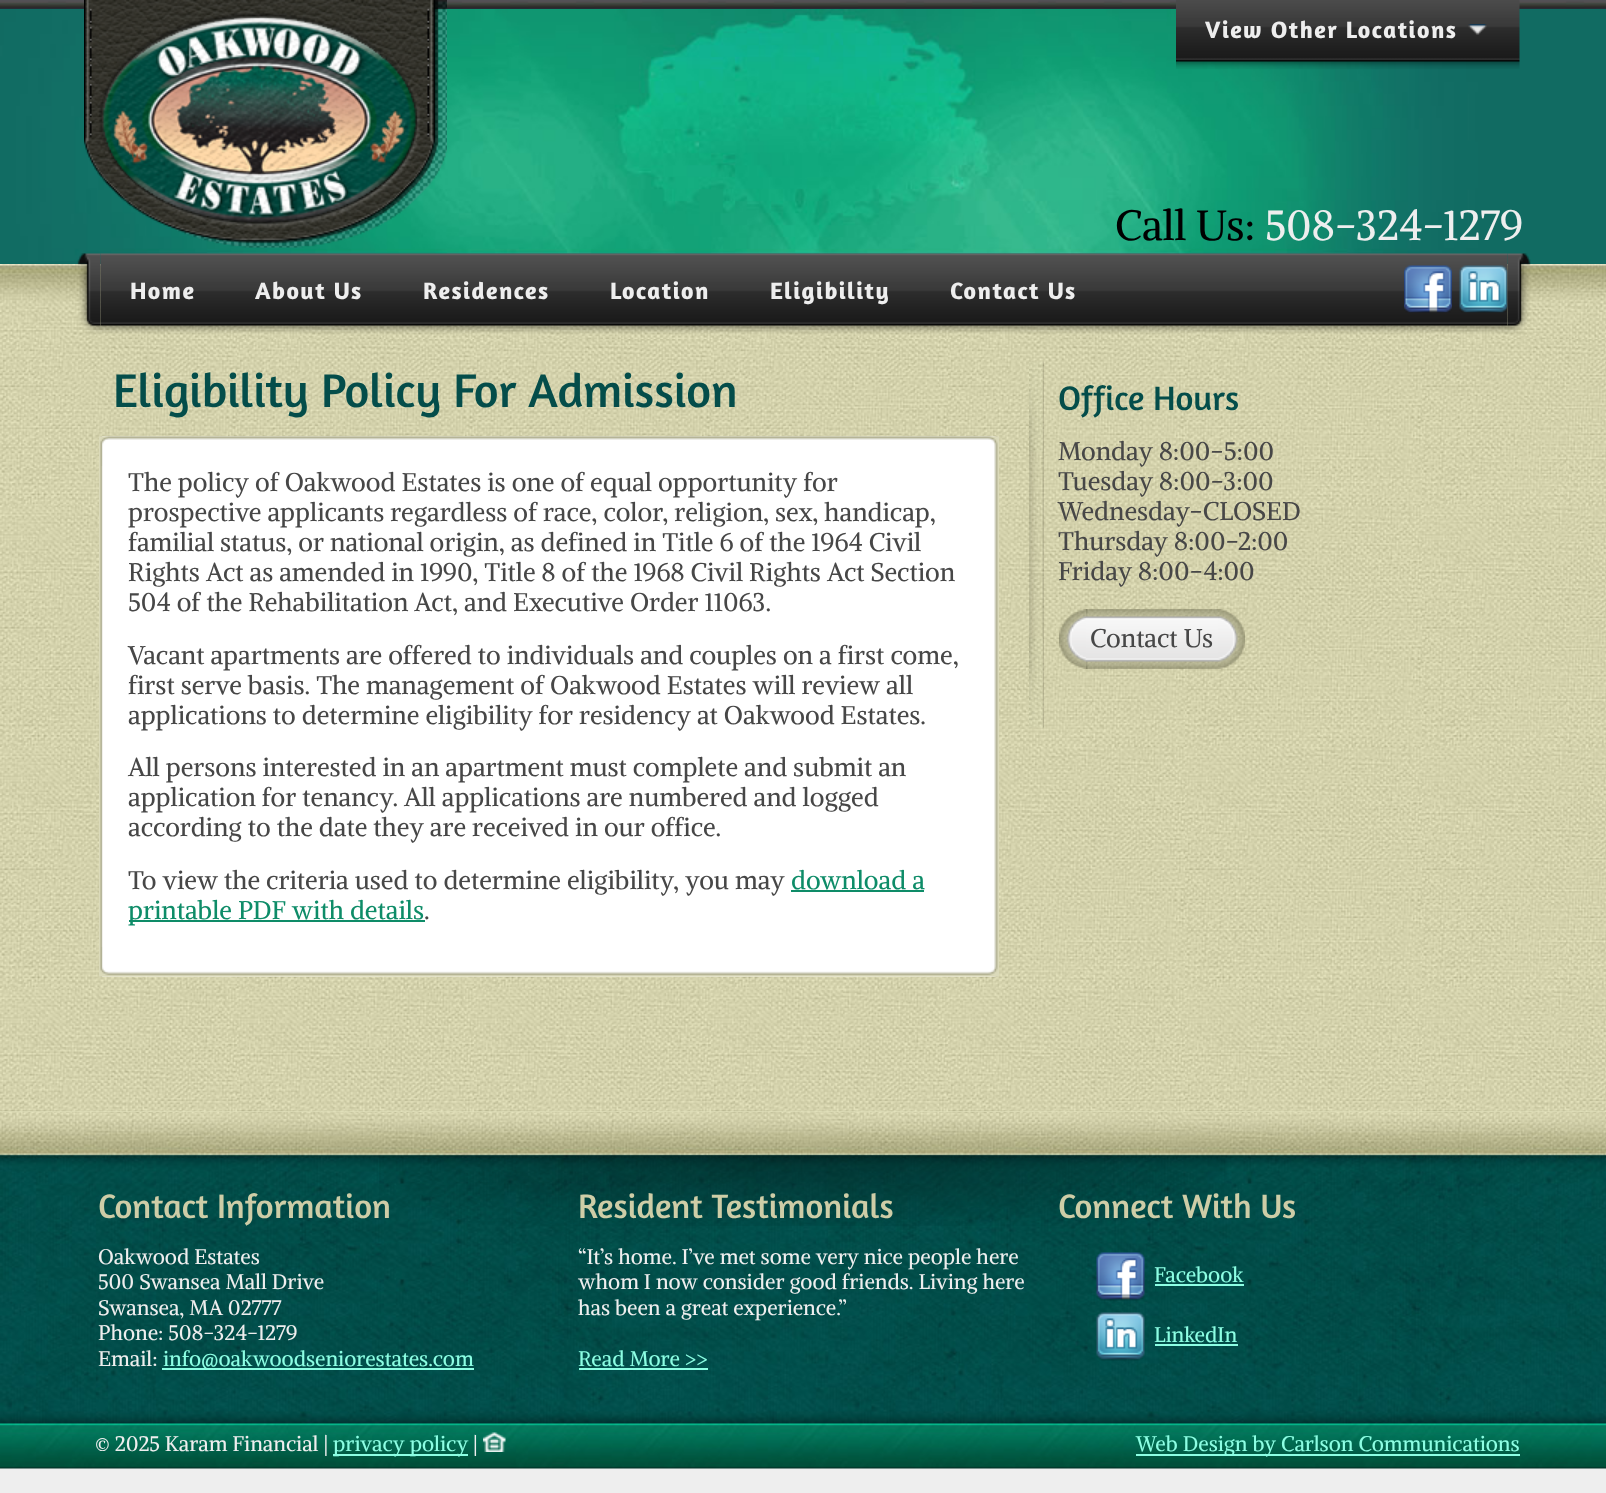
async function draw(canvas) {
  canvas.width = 1606
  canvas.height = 1493
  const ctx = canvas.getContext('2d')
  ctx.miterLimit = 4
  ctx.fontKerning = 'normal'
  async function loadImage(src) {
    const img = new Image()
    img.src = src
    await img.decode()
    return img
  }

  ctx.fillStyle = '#eee'
  ctx.fillRect(0, 0, 1606, 1493)
  ctx.fillStyle = '#126b63'
  ctx.fillRect(0, 261, 1606, 3)
  ctx.drawImage(await loadImage('image0.png'), 0, 0, 1606, 9)
  ctx.drawImage(await loadImage('image1.png'), 0, 9, 1606, 252)
  ctx.drawImage(await loadImage('image2.png'), 84, 0, 363, 248)
  ctx.drawImage(await loadImage('image3.png'), 1176, 0, 344, 69)
  ctx.letterSpacing = '1.5px'
  ctx.font = 'bold 24px Amaranth'
  ctx.fillStyle = '#eee'
  ctx.fillText('View Other Locations', 1205, 38)
  ctx.drawImage(await loadImage('image4.png'), 1468, 24, 19, 11)
  ctx.letterSpacing = '0px'
  ctx.font = '42px Alike'
  ctx.fillStyle = '#000'
  ctx.fillText('Call Us:', 1115, 240)
  ctx.fillStyle = '#eee'
  ctx.fillText('508-324-1279', 1265, 240)
  ctx.fillStyle = '#e5e4be'
  ctx.fillRect(0, 1111, 1606, 1)
  ctx.drawImage(await loadImage('image5.png'), 0, 339, 1606, 773)
  ctx.drawImage(await loadImage('image6.png'), 0, 264, 1606, 75)
  ctx.drawImage(await loadImage('image7.png'), 77, 253, 24, 81)
  ctx.drawImage(await loadImage('image8.png'), 100, 253, 1408, 81)
  ctx.letterSpacing = '1.5px'
  ctx.font = 'bold 24px Amaranth'
  ctx.fillStyle = '#eee'
  ctx.fillText('Home', 130, 299)
  ctx.fillText('About Us', 255, 299)
  ctx.fillText('Residences', 423, 299)
  ctx.fillText('Location', 610, 299)
  ctx.fillText('Eligibility', 770, 299)
  ctx.fillText('Contact Us', 950, 299)
  ctx.drawImage(await loadImage('image9.png'), 1404, 265, 48, 48)
  ctx.drawImage(await loadImage('image10.png'), 1459, 265, 49, 48)
  ctx.drawImage(await loadImage('image11.png'), 1507, 253, 24, 81)
  ctx.letterSpacing = '0px'
  ctx.font = '48px Amaranth'
  ctx.fillStyle = '#044d4a'
  ctx.fillText('Eligibility Policy For Admission', 113, 407)
  ctx.drawImage(await loadImage('image12.png'), 99, 436, 900, 541)
  ctx.drawImage(await loadImage('image13.png'), 100, 436, 898, 30)
  ctx.font = '25.5px Alike'
  ctx.fillStyle = '#474747'
  ctx.fillText('The policy of Oakwood Estates is one of equal opportunity for', 128, 491)
  ctx.fillText('prospective applicants regardless of race, color, religion, sex, handicap,', 128, 521)
  ctx.fillText('familial status, or national origin, as defined in Title 6 of the 1964 Civil', 128, 551)
  ctx.fillText('Rights Act as amended in 1990, Title 8 of the 1968 Civil Rights Act Section', 128, 581)
  ctx.fillText('504 of the Rehabilitation Act, and Executive Order 11063.', 128, 611)
  ctx.fillText('Vacant apartments are offered to individuals and couples on a first come,', 128, 664)
  ctx.fillText('first serve basis. The management of Oakwood Estates will review all', 128, 694)
  ctx.fillText('applications to determine eligibility for residency at Oakwood Estates.', 128, 724)
  ctx.fillText('All persons interested in an apartment must complete and submit an', 128, 776)
  ctx.fillText('application for tenancy. All applications are numbered and logged', 128, 806)
  ctx.fillText('according to the date they are received in our office.', 128, 836)
  ctx.fillText('To view the criteria used to determine eligibility, you may', 128, 889)
  ctx.fillStyle = '#0e8c68'
  ctx.fillText('download a', 791, 889)
  ctx.fillRect(791, 890, 133, 2)
  ctx.fillRect(129, 920, 296, 2)
  ctx.fillText('printable PDF with details', 128, 919)
  ctx.fillStyle = '#474747'
  ctx.fillText('.', 424, 919)
  ctx.drawImage(await loadImage('image14.png'), 100, 947, 898, 30)
  ctx.drawImage(await loadImage('image15.png'), 1029, 361, 15, 367)
  ctx.drawImage(await loadImage('image16.png'), 1029, 361, 14, 91)
  ctx.font = '34.5px Amaranth'
  ctx.fillStyle = '#044d4a'
  ctx.fillText('Office Hours', 1058, 410)
  ctx.font = '25.5px Alike'
  ctx.fillStyle = '#474747'
  ctx.fillText('Monday 8:00-5:00', 1058, 460)
  ctx.fillText('Tuesday 8:00-3:00', 1058, 490)
  ctx.fillText('Wednesday-CLOSED', 1058, 520)
  ctx.fillText('Thursday 8:00-2:00', 1058, 550)
  ctx.fillText('Friday 8:00-4:00', 1058, 580)
  ctx.drawImage(await loadImage('image17.png'), 1059, 609, 29, 60)
  ctx.drawImage(await loadImage('image18.png'), 1218, 609, 27, 60)
  ctx.drawImage(await loadImage('image19.png'), 1086, 609, 132, 60)
  ctx.fillText('Contact Us', 1090, 647)
  ctx.drawImage(await loadImage('image20.png'), 1029, 637, 14, 91)
  ctx.drawImage(await loadImage('image21.png'), 0, 1112, 1606, 357)
  ctx.drawImage(await loadImage('image22.png'), 379, 1155, 848, 71)
  ctx.font = '34.5px Amaranth'
  ctx.fillStyle = '#cecda7'
  ctx.fillText('Contact Information', 98, 1218)
  ctx.font = '21px Alike'
  ctx.fillStyle = '#eee'
  ctx.fillText('Oakwood Estates', 98, 1264)
  ctx.fillText('500 Swansea Mall Drive', 98, 1289)
  ctx.fillText('Swansea, MA 02777', 98, 1315)
  ctx.fillText('Phone: 508-324-1279', 98, 1340)
  ctx.fillText('Email:', 98, 1366)
  ctx.fillStyle = '#8cfee3'
  ctx.fillRect(162, 1368, 312, 2)
  ctx.fillText('info@oakwoodseniorestates.com', 163, 1366)
  ctx.font = '34.5px Amaranth'
  ctx.fillStyle = '#cecda7'
  ctx.fillText('Resident Testimonials', 578, 1218)
  ctx.font = '21px Alike'
  ctx.fillStyle = '#eee'
  ctx.fillText('“It’s home. I’ve met some very nice people here', 578, 1264)
  ctx.fillText('whom I now consider good friends. Living here', 578, 1289)
  ctx.fillText('has been a great experience.”', 578, 1315)
  ctx.fillStyle = '#8cfee3'
  ctx.fillText('Read More >>', 578, 1366)
  ctx.fillRect(579, 1368, 129, 2)
  ctx.font = '34.5px Amaranth'
  ctx.fillStyle = '#cecda7'
  ctx.fillText('Connect With Us', 1058, 1218)
  ctx.drawImage(await loadImage('image23.png'), 1096, 1252, 49, 49)
  ctx.font = '21px Alike'
  ctx.fillStyle = '#8cfee3'
  ctx.fillText('Facebook', 1154, 1282)
  ctx.fillRect(1155, 1284, 89, 2)
  ctx.drawImage(await loadImage('image24.png'), 1096, 1312, 49, 49)
  ctx.fillText('LinkedIn', 1154, 1342)
  ctx.fillRect(1155, 1344, 83, 2)
  ctx.fillStyle = '#eee'
  ctx.fillText('© 2025 Karam Financial |', 95, 1451)
  ctx.fillStyle = '#8cfee3'
  ctx.fillRect(333, 1454, 135, 2)
  ctx.fillText('privacy policy', 333, 1451)
  ctx.fillStyle = '#eee'
  ctx.fillText('|', 473, 1451)
  ctx.drawImage(await loadImage('image25.png'), 483, 1432, 23, 20)
  ctx.fillStyle = '#8cfee3'
  ctx.fillRect(1136, 1454, 384, 2)
  ctx.fillText('Web Design by Carlson Communications', 1136, 1451)
}

draw(document.querySelector('canvas'))
